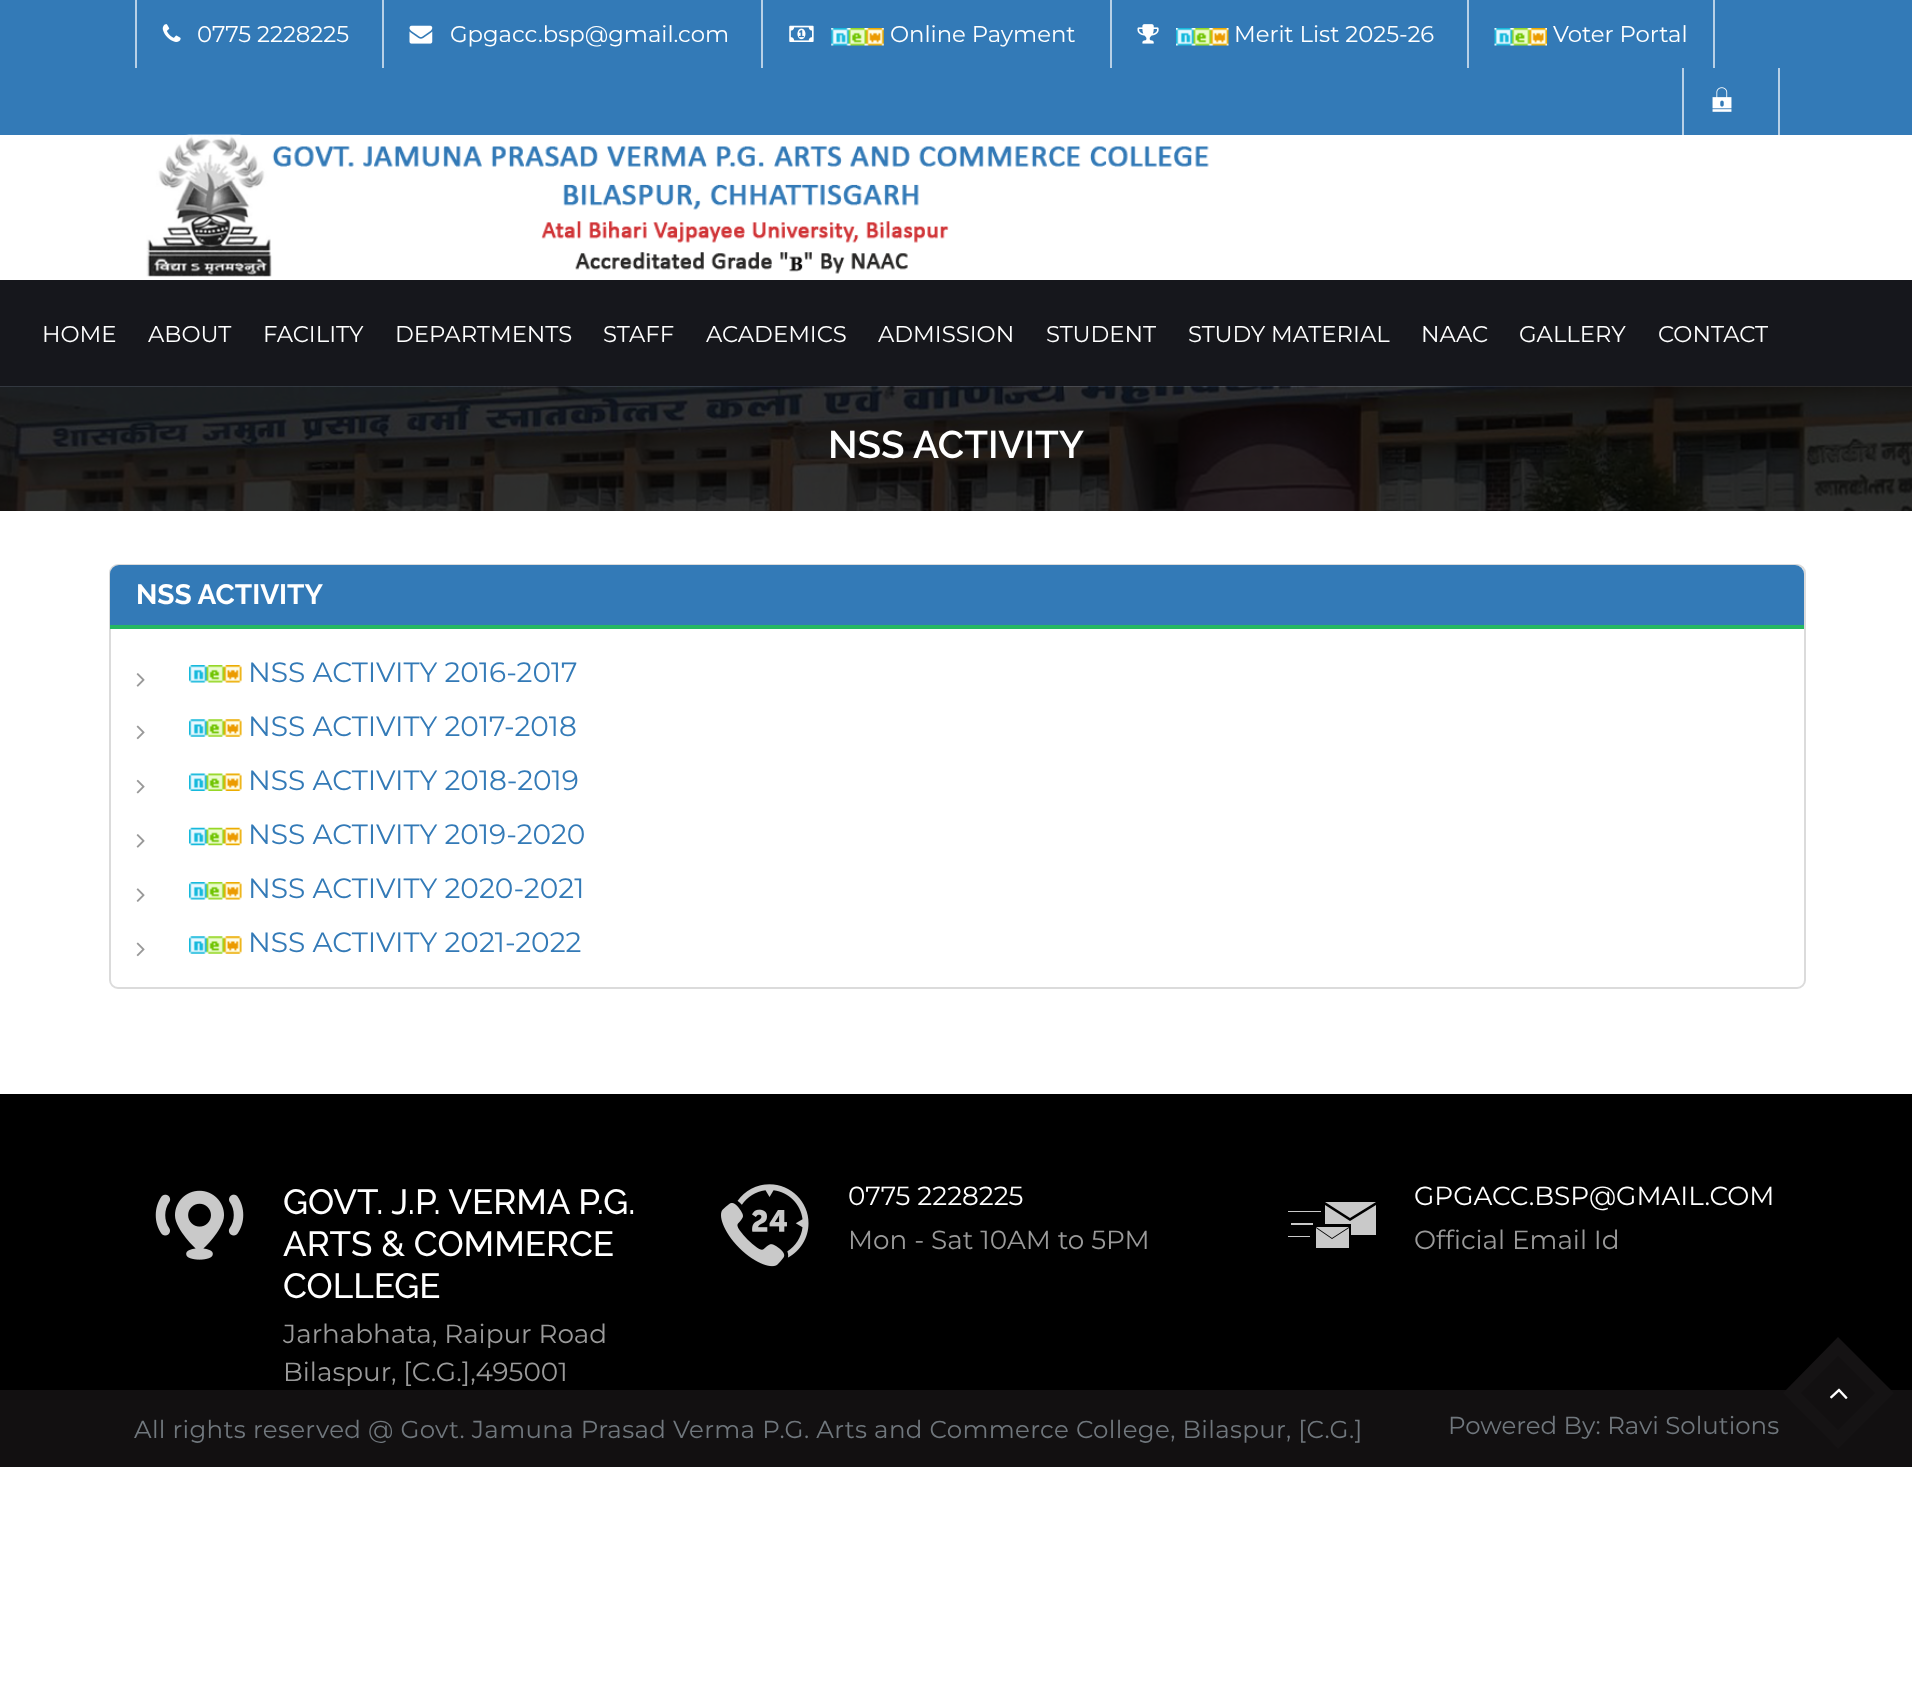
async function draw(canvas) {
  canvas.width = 1912
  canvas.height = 1694
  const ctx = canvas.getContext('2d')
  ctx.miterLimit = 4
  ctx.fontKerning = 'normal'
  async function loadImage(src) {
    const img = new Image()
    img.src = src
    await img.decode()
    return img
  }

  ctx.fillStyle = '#fff'
  ctx.fillRect(0, 0, 1912, 1694)
  ctx.fillStyle = '#337ab7'
  ctx.fillRect(0, 0, 1912, 135)
  ctx.fillStyle = '#b8d0e6'
  ctx.fillRect(135, 0, 2, 68)
  ctx.drawImage(await loadImage('image0.png'), 162, 24, 19, 18)
  ctx.font = '22.75px Montserrat'
  ctx.fillStyle = '#fff'
  ctx.fillText('0775 2228225', 197, 42)
  ctx.fillStyle = '#b8d0e6'
  ctx.fillRect(382, 0, 2, 68)
  ctx.drawImage(await loadImage('image1.png'), 409, 25, 24, 19)
  ctx.fillStyle = '#fff'
  ctx.fillText('Gpgacc.bsp@gmail.com', 450, 42)
  ctx.fillStyle = '#b8d0e6'
  ctx.fillRect(761, 0, 2, 68)
  ctx.drawImage(await loadImage('image2.png'), 789, 25, 25, 17)
  ctx.drawImage(await loadImage('image3.png'), 831, 28, 53, 18)
  ctx.fillStyle = '#fff'
  ctx.fillText('Online Payment', 890, 42)
  ctx.fillStyle = '#b8d0e6'
  ctx.fillRect(1110, 0, 2, 68)
  ctx.drawImage(await loadImage('image4.png'), 1137, 24, 22, 20)
  ctx.drawImage(await loadImage('image5.png'), 1176, 28, 53, 18)
  ctx.fillStyle = '#fff'
  ctx.fillText('Merit List 2025-26', 1234, 42)
  ctx.fillStyle = '#b8d0e6'
  ctx.fillRect(1713, 0, 2, 68)
  ctx.fillRect(1467, 0, 2, 68)
  ctx.drawImage(await loadImage('image6.png'), 1494, 28, 53, 18)
  ctx.fillStyle = '#fff'
  ctx.fillText('Voter Portal', 1553, 42)
  ctx.fillStyle = '#b8d0e6'
  ctx.fillRect(1778, 68, 2, 67)
  ctx.fillRect(1682, 68, 2, 67)
  ctx.drawImage(await loadImage('image7.png'), 1712, 87, 20, 25)
  ctx.drawImage(await loadImage('image8.png'), 146, 134, 1063, 143)
  ctx.fillStyle = '#16171c'
  ctx.fillRect(0, 280, 1912, 107)
  ctx.fillStyle = '#fff'
  ctx.fillText('HOME', 42, 342)
  ctx.fillText('ABOUT', 148, 342)
  ctx.fillText('FACILITY', 263, 342)
  ctx.fillText('DEPARTMENTS', 395, 342)
  ctx.fillText('STAFF', 603, 342)
  ctx.fillText('ACADEMICS', 706, 342)
  ctx.fillText('ADMISSION', 878, 342)
  ctx.fillText('STUDENT', 1046, 342)
  ctx.fillText('STUDY MATERIAL', 1188, 342)
  ctx.fillText('NAAC', 1421, 342)
  ctx.fillText('GALLERY', 1519, 342)
  ctx.fillText('CONTACT', 1658, 342)
  ctx.drawImage(await loadImage('image9.png'), 0, 386, 1912, 125)
  ctx.font = '600 38.5px Raleway'
  ctx.fillText('NSS ACTIVITY', 828, 458)
  ctx.beginPath()
  ctx.roundRect(110, 565, 1695, 423, 8)
  ctx.strokeStyle = '#dbdbdb'
  ctx.lineWidth = 2
  ctx.stroke()
  ctx.fillStyle = '#337ab7'
  ctx.beginPath()
  ctx.roundRect(110, 565, 1694, 63, [9, 9, 0, 0])
  ctx.fill()
  ctx.fillStyle = '#25b762'
  ctx.fillRect(110, 625, 1694, 4)
  ctx.font = 'bold 28px Raleway'
  ctx.fillStyle = '#fff'
  ctx.fillText('NSS ACTIVITY', 136, 604)
  ctx.drawImage(await loadImage('image10.png'), 136, 673, 9, 14)
  ctx.drawImage(await loadImage('image11.png'), 189, 665, 53, 18)
  ctx.font = '28px Montserrat'
  ctx.fillStyle = '#337ab7'
  ctx.fillText('NSS ACTIVITY 2016-2017', 248, 682)
  ctx.drawImage(await loadImage('image12.png'), 136, 725, 9, 15)
  ctx.drawImage(await loadImage('image13.png'), 189, 719, 53, 18)
  ctx.fillText('NSS ACTIVITY 2017-2018', 248, 736)
  ctx.drawImage(await loadImage('image14.png'), 136, 779, 9, 15)
  ctx.drawImage(await loadImage('image15.png'), 189, 773, 53, 18)
  ctx.fillText('NSS ACTIVITY 2018-2019', 248, 790)
  ctx.drawImage(await loadImage('image10.png'), 136, 834, 9, 14)
  ctx.drawImage(await loadImage('image16.png'), 189, 827, 53, 19)
  ctx.fillText('NSS ACTIVITY 2019-2020', 248, 844)
  ctx.drawImage(await loadImage('image17.png'), 136, 888, 9, 14)
  ctx.drawImage(await loadImage('image11.png'), 189, 882, 53, 18)
  ctx.fillText('NSS ACTIVITY 2020-2021', 248, 898)
  ctx.drawImage(await loadImage('image12.png'), 136, 942, 9, 15)
  ctx.drawImage(await loadImage('image13.png'), 189, 936, 53, 18)
  ctx.fillText('NSS ACTIVITY 2021-2022', 248, 952)
  ctx.fillStyle = '#000'
  ctx.fillRect(0, 1094, 1912, 296)
  ctx.drawImage(await loadImage('image18.png'), 155, 1190, 89, 70)
  ctx.font = '500 35px Raleway'
  ctx.fillStyle = '#fff'
  ctx.fillText('GOVT. J.P. VERMA P.G.', 283, 1214)
  ctx.fillText('ARTS & COMMERCE', 283, 1256)
  ctx.fillText('COLLEGE', 283, 1298)
  ctx.font = '26.25px Montserrat'
  ctx.fillStyle = '#9a9a9a'
  ctx.fillText('Jarhabhata, Raipur Road', 283, 1343)
  ctx.fillText('Bilaspur, [C.G.],495001', 283, 1381)
  ctx.drawImage(await loadImage('image19.png'), 721, 1184, 88, 83)
  ctx.fillStyle = '#fff'
  ctx.fillText('0775 2228225', 848, 1205)
  ctx.fillStyle = '#9a9a9a'
  ctx.fillText('Mon - Sat 10AM to 5PM', 848, 1249)
  ctx.fillStyle = '#c9c9c9'
  ctx.beginPath()
  ctx.moveTo(1376, 1202)
  ctx.lineTo(1325, 1202)
  ctx.lineTo(1350, 1218)
  ctx.closePath()
  ctx.moveTo(1325, 1205)
  ctx.lineTo(1325, 1224)
  ctx.lineTo(1351, 1224)
  ctx.lineTo(1351, 1235)
  ctx.lineTo(1376, 1235)
  ctx.lineTo(1376, 1205)
  ctx.lineTo(1350, 1221)
  ctx.closePath()
  ctx.moveTo(1316, 1228)
  ctx.lineTo(1316, 1248)
  ctx.lineTo(1349, 1248)
  ctx.lineTo(1349, 1228)
  ctx.lineTo(1332, 1239)
  ctx.closePath()
  ctx.moveTo(1332, 1238)
  ctx.lineTo(1349, 1227)
  ctx.lineTo(1316, 1227)
  ctx.closePath()
  ctx.moveTo(1288, 1236)
  ctx.lineTo(1310, 1236)
  ctx.lineTo(1310, 1237)
  ctx.lineTo(1288, 1237)
  ctx.closePath()
  ctx.moveTo(1291, 1223)
  ctx.lineTo(1313, 1223)
  ctx.lineTo(1313, 1225)
  ctx.lineTo(1291, 1225)
  ctx.closePath()
  ctx.moveTo(1288, 1211)
  ctx.lineTo(1321, 1211)
  ctx.lineTo(1321, 1212)
  ctx.lineTo(1288, 1212)
  ctx.closePath()
  ctx.fill()
  ctx.fillStyle = '#fff'
  ctx.fillText('GPGACC.BSP@GMAIL.COM', 1414, 1205)
  ctx.fillStyle = '#9a9a9a'
  ctx.fillText('Official Email Id', 1414, 1249)
  ctx.fillStyle = '#121011'
  ctx.fillRect(0, 1390, 1912, 77)
  ctx.letterSpacing = '0.35px'
  ctx.font = '24.5px Montserrat'
  ctx.fillStyle = '#70777d'
  ctx.fillText('All rights reserved @ Govt. Jamuna Prasad Verma P.G. Arts and Commerce College, Bilaspur, [C.G.]', 134, 1438)
  ctx.letterSpacing = '0px'
  ctx.fillText('Powered By: Ravi Solutions', 1448, 1434)
  ctx.fillStyle = '#151314'
  ctx.beginPath()
  ctx.moveTo(1838, 1337)
  ctx.lineTo(1894, 1393)
  ctx.lineTo(1838, 1449)
  ctx.lineTo(1783, 1393)
  ctx.closePath()
  ctx.fill()
  ctx.fillStyle = '#121011'
  ctx.beginPath()
  ctx.moveTo(1838, 1356)
  ctx.lineTo(1875, 1393)
  ctx.lineTo(1838, 1430)
  ctx.lineTo(1801, 1393)
  ctx.closePath()
  ctx.fill()
  ctx.drawImage(await loadImage('image20.png'), 1830, 1388, 18, 11)
}

draw(document.querySelector('canvas'))
